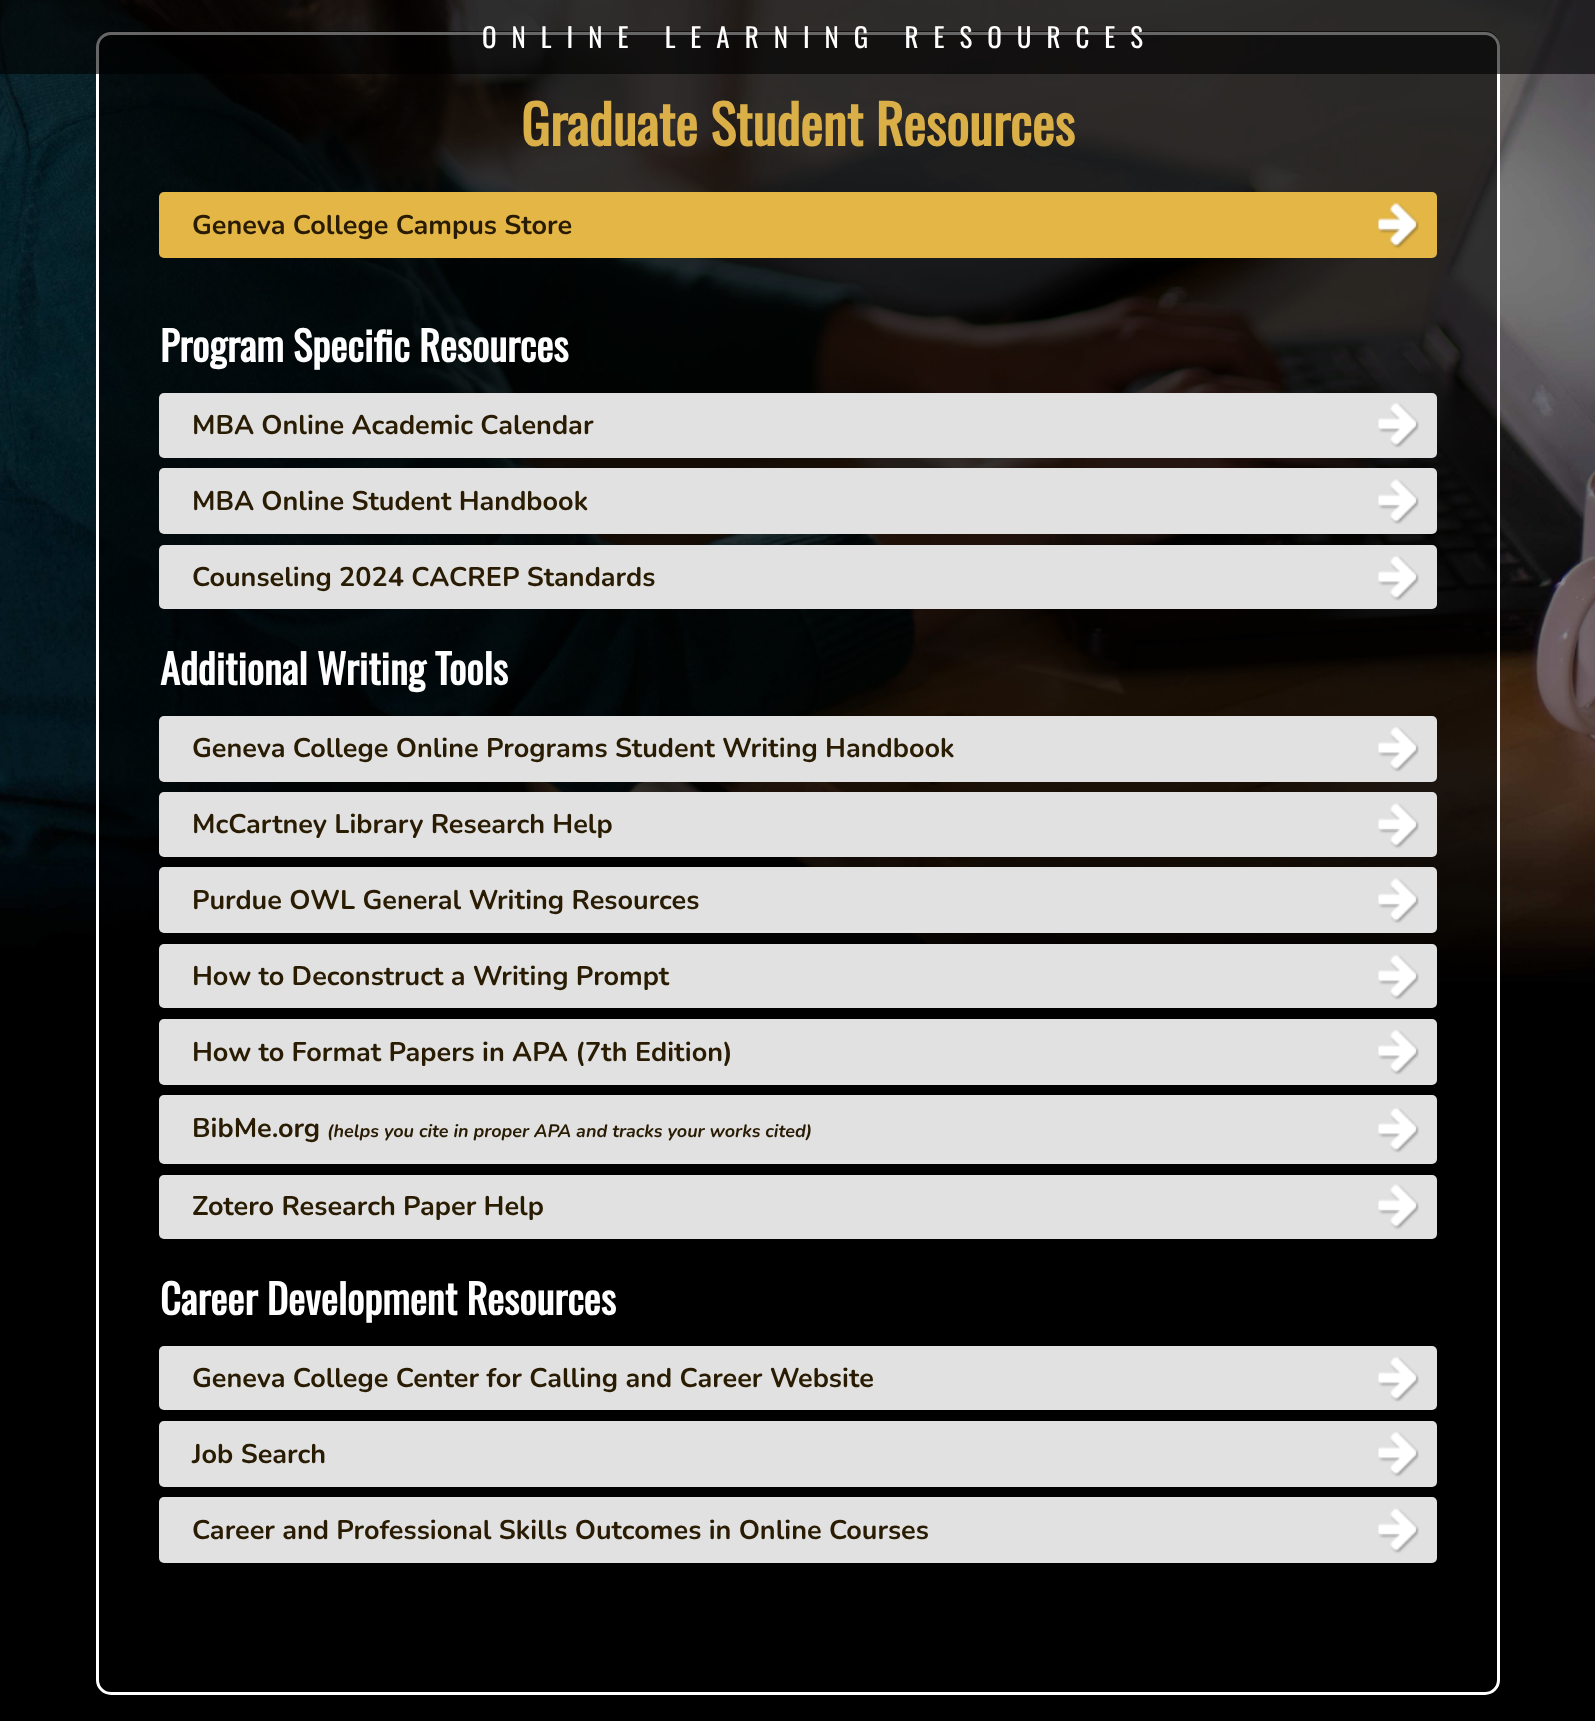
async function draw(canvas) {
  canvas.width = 1595
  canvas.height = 1721
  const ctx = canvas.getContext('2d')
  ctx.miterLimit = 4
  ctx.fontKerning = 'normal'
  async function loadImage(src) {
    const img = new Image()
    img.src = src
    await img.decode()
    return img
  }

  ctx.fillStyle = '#000'
  ctx.fillRect(0, 0, 1595, 1721)
  ctx.drawImage(await loadImage('image0.png'), 0, 0, 1595, 982)
  ctx.drawImage(await loadImage('image1.png'), 96, 31, 1404, 945)
  ctx.beginPath()
  ctx.roundRect(97.5, 33.5, 1401, 1660, 13.5)
  ctx.strokeStyle = '#fff'
  ctx.lineWidth = 3
  ctx.stroke()
  ctx.fillStyle = '#00000099'
  ctx.fillRect(0, 0, 1595, 74)
  ctx.letterSpacing = '15px'
  ctx.font = '27px Oswald'
  ctx.fillStyle = '#fff'
  ctx.fillText('ONLINE LEARNING RESOURCES', 482, 48)
  ctx.letterSpacing = '0px'
  ctx.font = 'bold 54px Oswald'
  ctx.fillStyle = '#daaf48'
  ctx.fillText('Graduate Student Resources', 521, 146)
  ctx.fillStyle = '#e4b646'
  ctx.beginPath()
  ctx.roundRect(159, 192, 1278, 66, 5)
  ctx.fill()
  ctx.drawImage(await loadImage('image2.png'), 1378, 203, 41, 46)
  ctx.font = 'bold 27px Nunito'
  ctx.fillStyle = '#291c03'
  ctx.fillText('Geneva College Campus Store', 192, 234)
  ctx.font = 'bold 40.5px Oswald'
  ctx.fillStyle = '#fff'
  ctx.fillText('Program Specific Resources', 160, 362)
  ctx.fillStyle = '#e1e1e1'
  ctx.beginPath()
  ctx.roundRect(159, 393, 1278, 65, 5)
  ctx.fill()
  ctx.drawImage(await loadImage('image3.png'), 1378, 403, 41, 45)
  ctx.font = 'bold 27px Nunito'
  ctx.fillStyle = '#291c03'
  ctx.fillText('MBA Online Academic Calendar', 192, 434)
  ctx.fillStyle = '#e1e1e1'
  ctx.beginPath()
  ctx.roundRect(159, 468, 1278, 66, 5)
  ctx.fill()
  ctx.drawImage(await loadImage('image4.png'), 1378, 479, 41, 46)
  ctx.fillStyle = '#291c03'
  ctx.fillText('MBA Online Student Handbook', 192, 510)
  ctx.fillStyle = '#e1e1e1'
  ctx.beginPath()
  ctx.roundRect(159, 545, 1278, 64, 5)
  ctx.fill()
  ctx.drawImage(await loadImage('image3.png'), 1378, 556, 41, 45)
  ctx.fillStyle = '#291c03'
  ctx.fillText('Counseling 2024 CACREP Standards', 192, 586)
  ctx.font = 'bold 40.5px Oswald'
  ctx.fillStyle = '#fff'
  ctx.fillText('Additional Writing Tools', 160, 685)
  ctx.fillStyle = '#e1e1e1'
  ctx.beginPath()
  ctx.roundRect(159, 716, 1278, 66, 5)
  ctx.fill()
  ctx.drawImage(await loadImage('image3.png'), 1378, 727, 41, 45)
  ctx.font = 'bold 27px Nunito'
  ctx.fillStyle = '#291c03'
  ctx.fillText('Geneva College Online Programs Student Writing Handbook', 192, 757)
  ctx.fillStyle = '#e1e1e1'
  ctx.beginPath()
  ctx.roundRect(159, 792, 1278, 65, 5)
  ctx.fill()
  ctx.drawImage(await loadImage('image4.png'), 1378, 803, 41, 46)
  ctx.fillStyle = '#291c03'
  ctx.fillText('McCartney Library Research Help', 192, 833)
  ctx.fillStyle = '#e1e1e1'
  ctx.beginPath()
  ctx.roundRect(159, 867, 1278, 66, 5)
  ctx.fill()
  ctx.drawImage(await loadImage('image4.png'), 1378, 878, 41, 46)
  ctx.fillStyle = '#291c03'
  ctx.fillText('Purdue OWL General Writing Resources', 192, 909)
  ctx.fillStyle = '#e1e1e1'
  ctx.beginPath()
  ctx.roundRect(159, 944, 1278, 64, 5)
  ctx.fill()
  ctx.drawImage(await loadImage('image3.png'), 1378, 955, 41, 45)
  ctx.fillStyle = '#291c03'
  ctx.fillText('How to Deconstruct a Writing Prompt', 192, 985)
  ctx.fillStyle = '#e1e1e1'
  ctx.beginPath()
  ctx.roundRect(159, 1019, 1278, 66, 5)
  ctx.fill()
  ctx.drawImage(await loadImage('image3.png'), 1378, 1030, 41, 45)
  ctx.fillStyle = '#291c03'
  ctx.fillText('How to Format Papers in APA (7th Edition)', 192, 1061)
  ctx.fillStyle = '#e1e1e1'
  ctx.beginPath()
  ctx.roundRect(159, 1095, 1278, 69, 5)
  ctx.fill()
  ctx.drawImage(await loadImage('image3.png'), 1378, 1108, 41, 45)
  ctx.fillStyle = '#291c03'
  ctx.fillText('BibMe.org', 192, 1137)
  ctx.font = 'italic bold 18px Nunito'
  ctx.fillText('(helps you cite in proper APA and tracks your works cited)', 327, 1137)
  ctx.fillStyle = '#e1e1e1'
  ctx.beginPath()
  ctx.roundRect(159, 1175, 1278, 64, 5)
  ctx.fill()
  ctx.drawImage(await loadImage('image4.png'), 1378, 1184, 41, 46)
  ctx.font = 'bold 27px Nunito'
  ctx.fillStyle = '#291c03'
  ctx.fillText('Zotero Research Paper Help', 192, 1215)
  ctx.font = 'bold 40.5px Oswald'
  ctx.fillStyle = '#fff'
  ctx.fillText('Career Development Resources', 160, 1315)
  ctx.fillStyle = '#e1e1e1'
  ctx.beginPath()
  ctx.roundRect(159, 1346, 1278, 64, 5)
  ctx.fill()
  ctx.drawImage(await loadImage('image3.png'), 1378, 1357, 41, 45)
  ctx.font = 'bold 27px Nunito'
  ctx.fillStyle = '#291c03'
  ctx.fillText('Geneva College Center for Calling and Career Website', 192, 1387)
  ctx.fillStyle = '#e1e1e1'
  ctx.beginPath()
  ctx.roundRect(159, 1421, 1278, 66, 5)
  ctx.fill()
  ctx.drawImage(await loadImage('image3.png'), 1378, 1432, 41, 45)
  ctx.fillStyle = '#291c03'
  ctx.fillText('Job Search', 192, 1463)
  ctx.fillStyle = '#e1e1e1'
  ctx.beginPath()
  ctx.roundRect(159, 1497, 1278, 66, 5)
  ctx.fill()
  ctx.drawImage(await loadImage('image4.png'), 1378, 1508, 41, 46)
  ctx.fillStyle = '#291c03'
  ctx.fillText('Career and Professional Skills Outcomes in Online Courses', 192, 1539)
}

draw(document.querySelector('canvas'))
